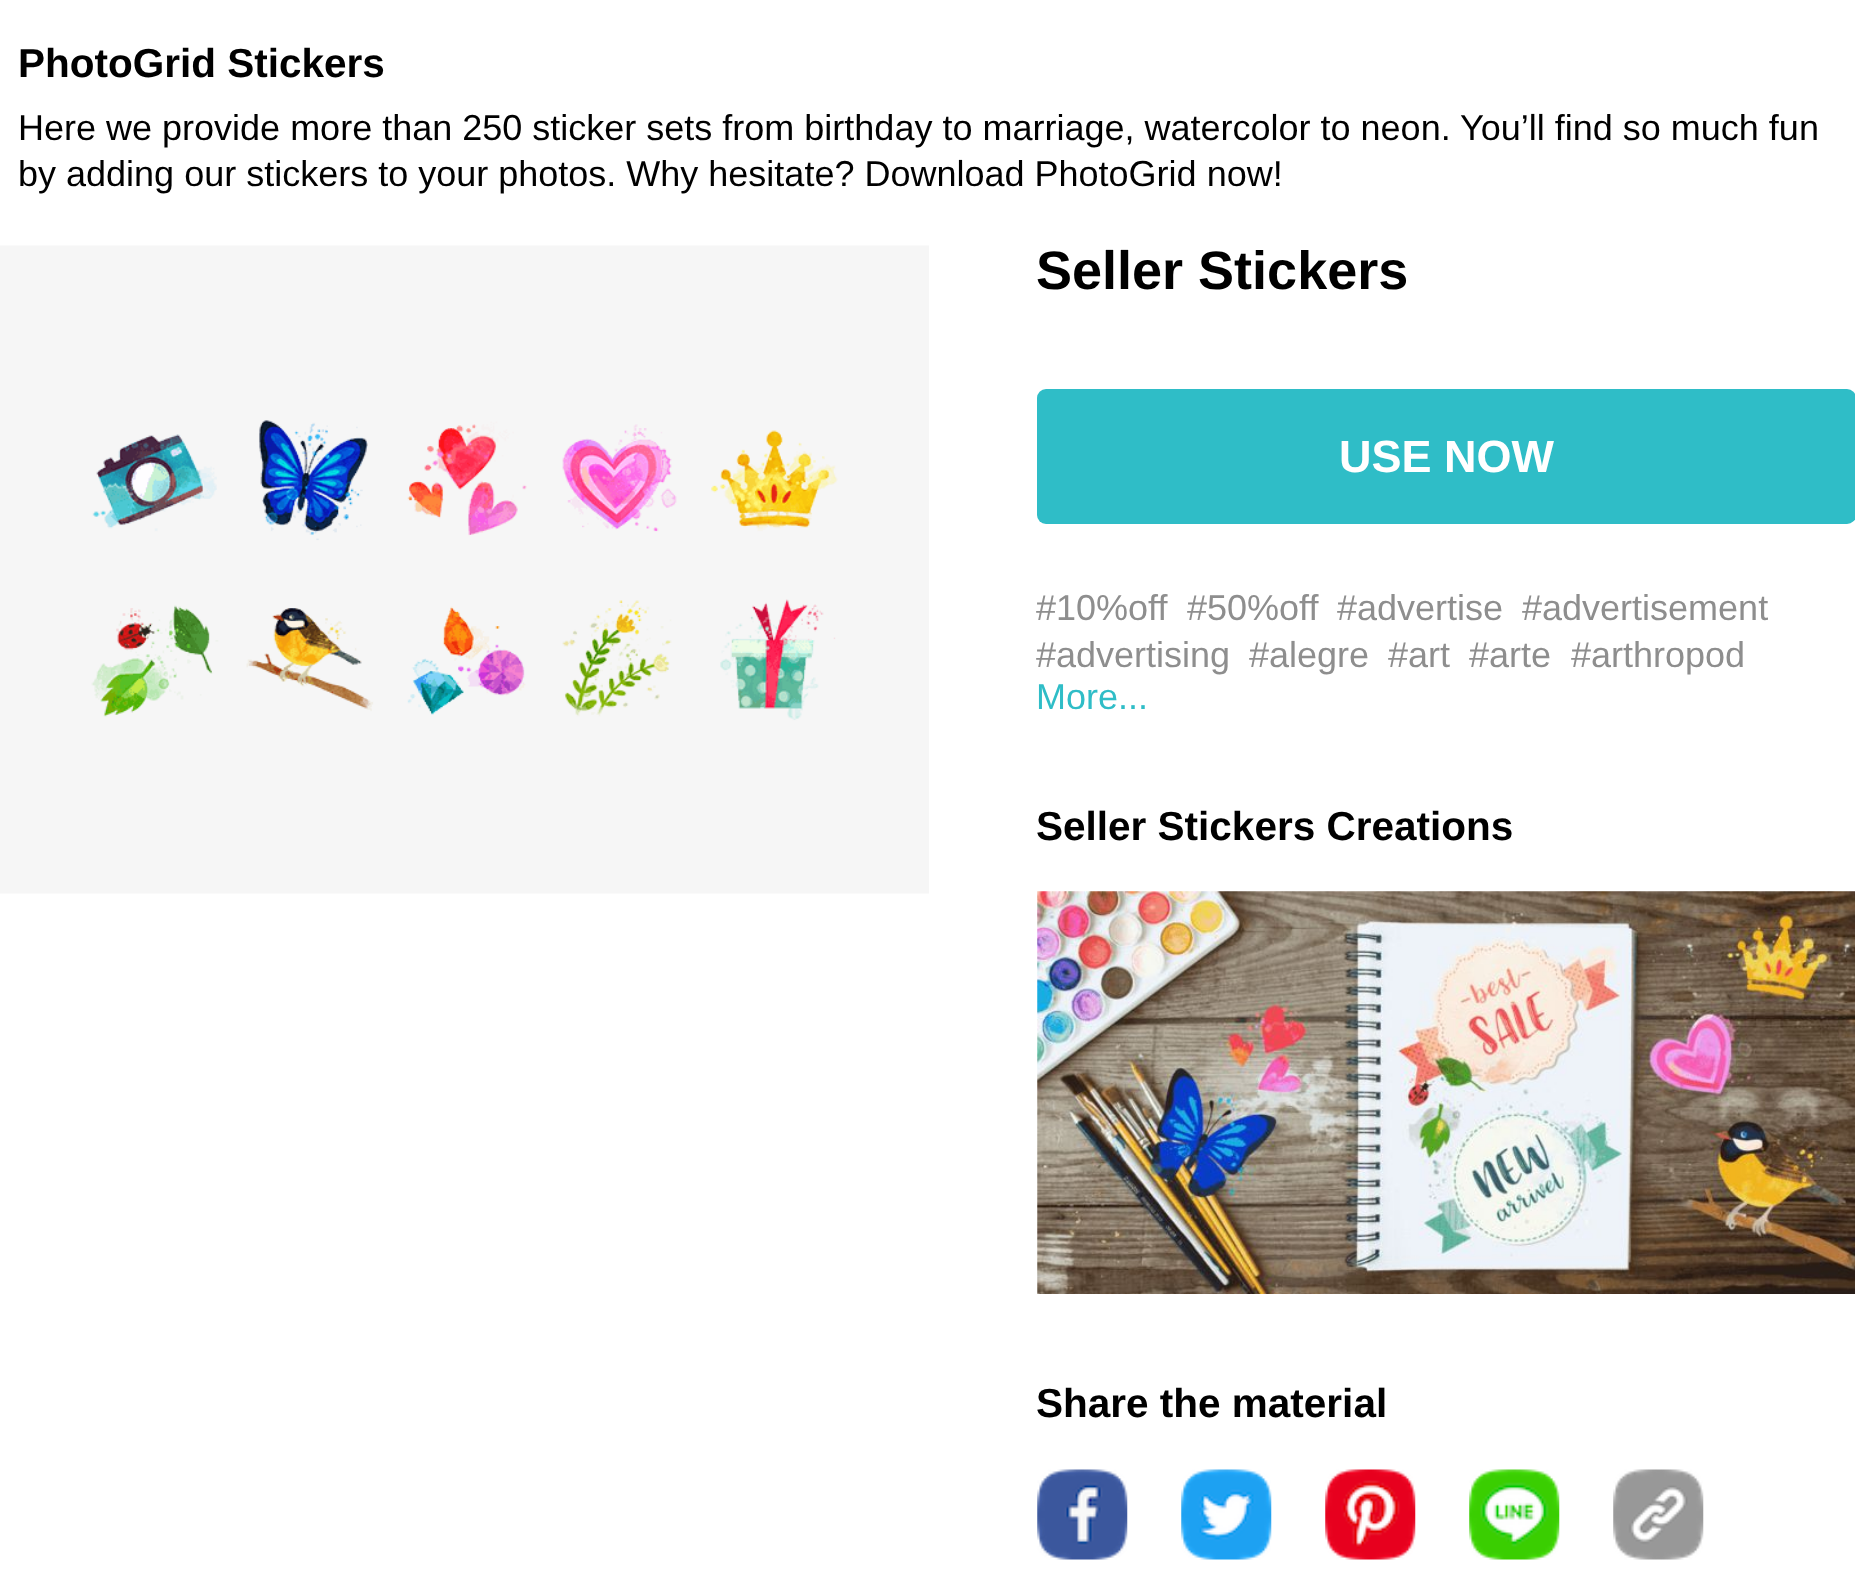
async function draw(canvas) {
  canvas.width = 1855
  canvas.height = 1582
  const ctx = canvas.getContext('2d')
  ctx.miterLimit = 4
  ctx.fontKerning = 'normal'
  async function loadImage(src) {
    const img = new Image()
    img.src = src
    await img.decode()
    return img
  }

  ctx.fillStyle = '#fff'
  ctx.fillRect(0, 0, 1855, 1582)
  ctx.font = 'bold 40.5px Liberation Sans'
  ctx.fillStyle = '#000'
  ctx.fillText('PhotoGrid Stickers', 18, 77)
  ctx.font = '36px Liberation Sans'
  ctx.fillText('Here we provide more than 250 sticker sets from birthday to marriage, watercolor to neon. You’ll find so much fun', 18, 140)
  ctx.fillText('by adding our stickers to your photos. Why hesitate? Download PhotoGrid now!', 18, 186)
  ctx.drawImage(await loadImage('image0.png'), 0, 245, 929, 649)
  ctx.font = 'bold 54px Liberation Sans'
  ctx.fillText('Seller Stickers', 1036, 289)
  ctx.fillStyle = '#2fbdc7'
  ctx.beginPath()
  ctx.roundRect(1037, 389, 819, 135, 9)
  ctx.fill()
  ctx.font = 'bold 45px Liberation Sans'
  ctx.fillStyle = '#fff'
  ctx.fillText('USE NOW', 1339, 472)
  ctx.font = '36px Liberation Sans'
  ctx.fillStyle = '#8e8e8e'
  ctx.fillText('#10%off', 1036, 620)
  ctx.fillText('#50%off', 1187, 620)
  ctx.fillText('#advertise', 1337, 620)
  ctx.fillText('#advertisement', 1522, 620)
  ctx.fillText('#advertising', 1036, 667)
  ctx.fillText('#alegre', 1249, 667)
  ctx.fillText('#art', 1388, 667)
  ctx.fillText('#arte', 1469, 667)
  ctx.fillText('#arthropod', 1571, 667)
  ctx.fillStyle = '#2fbdc7'
  ctx.fillText('More...', 1036, 709)
  ctx.font = 'bold 40.5px Liberation Sans'
  ctx.fillStyle = '#000'
  ctx.fillText('Seller Stickers Creations', 1036, 840)
  ctx.drawImage(await loadImage('image1.png'), 1037, 891, 818, 403)
  ctx.fillText('Share the material', 1036, 1417)
  ctx.drawImage(await loadImage('image2.png'), 1037, 1469, 91, 91)
  ctx.drawImage(await loadImage('image3.png'), 1181, 1469, 91, 91)
  ctx.drawImage(await loadImage('image4.png'), 1325, 1469, 91, 91)
  ctx.drawImage(await loadImage('image5.png'), 1469, 1469, 91, 91)
  ctx.drawImage(await loadImage('image6.png'), 1613, 1469, 91, 91)
}

draw(document.querySelector('canvas'))
